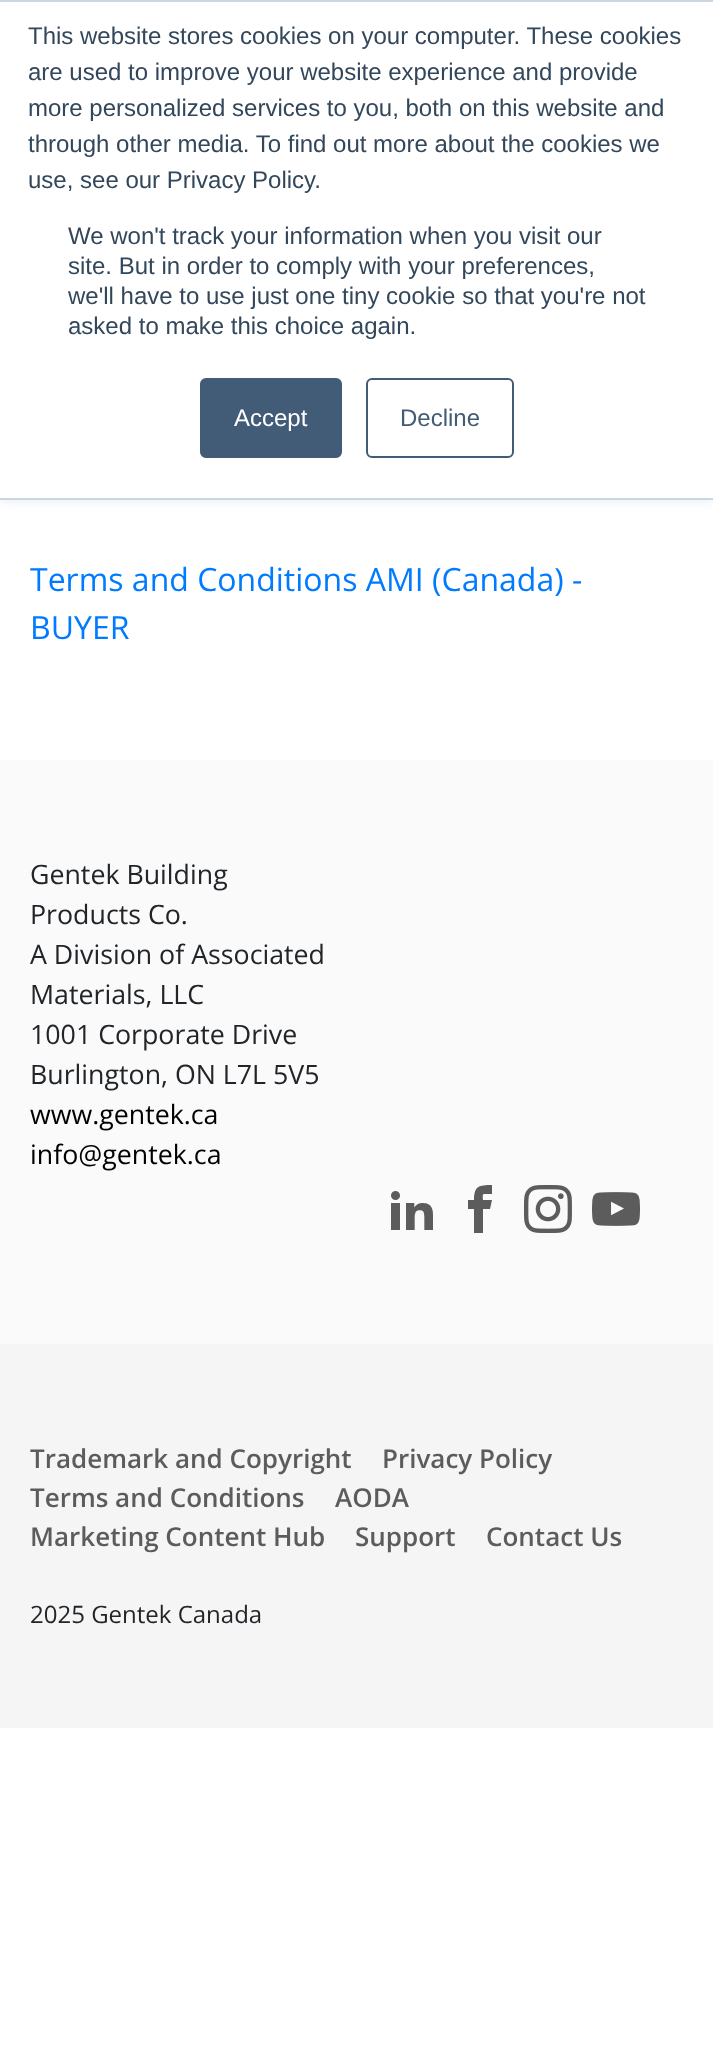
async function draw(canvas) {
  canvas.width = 713
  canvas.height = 2069
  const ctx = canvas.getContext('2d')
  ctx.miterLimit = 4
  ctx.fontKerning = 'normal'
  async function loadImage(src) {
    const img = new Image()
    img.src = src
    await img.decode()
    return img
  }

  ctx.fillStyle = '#fff'
  ctx.fillRect(0, 0, 713, 2069)
  ctx.fillStyle = '#eaf0f6'
  ctx.filter = 'blur(5px)'
  ctx.beginPath()
  ctx.rect(0, 2, 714, 500)
  ctx.fill()
  ctx.filter = 'none'
  ctx.fillStyle = '#fff'
  ctx.fillRect(0, 2, 713, 496)
  ctx.fillStyle = '#cbd6e2'
  ctx.fillRect(0, 0, 713, 2)
  ctx.fillRect(0, 498, 713, 2)
  ctx.font = '24px Liberation Sans'
  ctx.fillStyle = '#33475b'
  ctx.fillText('This website stores cookies on your computer. These cookies', 28, 44)
  ctx.fillText('are used to improve your website experience and provide', 28, 80)
  ctx.fillText('more personalized services to you, both on this website and', 28, 116)
  ctx.fillText('through other media. To find out more about the cookies we', 28, 152)
  ctx.fillText('use, see our Privacy Policy.', 28, 188)
  ctx.fillText('We won\'t track your information when you visit our', 68, 244)
  ctx.fillText('site. But in order to comply with your preferences,', 68, 274)
  ctx.fillText('we\'ll have to use just one tiny cookie so that you\'re not', 68, 304)
  ctx.fillText('asked to make this choice again.', 68, 334)
  ctx.fillStyle = '#425b76'
  ctx.beginPath()
  ctx.roundRect(201, 379, 140, 78, 5)
  ctx.fill()
  ctx.strokeStyle = '#425b76'
  ctx.lineWidth = 2
  ctx.stroke()
  ctx.fillStyle = '#fff'
  ctx.fillText('Accept', 234, 426)
  ctx.beginPath()
  ctx.roundRect(367, 379, 146, 78, 5)
  ctx.stroke()
  ctx.fillStyle = '#425b76'
  ctx.fillText('Decline', 400, 426)
  ctx.font = '32px Open Sans'
  ctx.fillStyle = '#007bff'
  ctx.fillText('Terms and Conditions AMI (Canada) -', 30, 591)
  ctx.fillText('BUYER', 30, 639)
  ctx.fillStyle = '#fafafa'
  ctx.fillRect(0, 760, 713, 584)
  ctx.font = '26.75px Open Sans'
  ctx.fillStyle = '#212529'
  ctx.fillText('Gentek Building', 30, 884)
  ctx.fillText('Products Co.', 30, 924)
  ctx.fillText('A Division of Associated', 30, 964)
  ctx.fillText('Materials, LLC', 30, 1004)
  ctx.fillText('1001 Corporate Drive', 30, 1044)
  ctx.fillText('Burlington, ON L7L 5V5', 30, 1084)
  ctx.fillStyle = '#000'
  ctx.fillText('www.gentek.ca', 30, 1124)
  ctx.fillText('info@gentek.ca', 30, 1164)
  ctx.drawImage(await loadImage('image0.png'), 391, 1191, 42, 39)
  ctx.fillStyle = '#5c5c5c'
  ctx.beginPath()
  ctx.moveTo(484, 1194)
  ctx.lineTo(492, 1194)
  ctx.lineTo(492, 1185)
  ctx.bezierCurveTo(479, 1185, 474, 1186, 474, 1200)
  ctx.lineTo(468, 1200)
  ctx.lineTo(468, 1209)
  ctx.lineTo(474, 1209)
  ctx.lineTo(474, 1233)
  ctx.lineTo(483, 1233)
  ctx.lineTo(483, 1209)
  ctx.lineTo(490, 1209)
  ctx.lineTo(492, 1200)
  ctx.lineTo(483, 1200)
  ctx.bezierCurveTo(483, 1199, 482, 1194, 484, 1194)
  ctx.closePath()
  ctx.fill()
  ctx.drawImage(await loadImage('image1.png'), 524, 1185, 48, 48)
  ctx.drawImage(await loadImage('image2.png'), 592, 1192, 48, 34)
  ctx.fillStyle = '#f5f5f5'
  ctx.fillRect(0, 1344, 713, 384)
  ctx.font = '600 26px Open Sans'
  ctx.fillStyle = '#5c5c5c'
  ctx.fillText('Trademark and Copyright', 30, 1468)
  ctx.fillText('Privacy Policy', 382, 1468)
  ctx.fillText('Terms and Conditions', 30, 1507)
  ctx.fillText('AODA', 335, 1507)
  ctx.fillText('Marketing Content Hub', 30, 1546)
  ctx.fillText('Support', 355, 1546)
  ctx.fillText('Contact Us', 486, 1546)
  ctx.font = '24px Open Sans'
  ctx.fillStyle = '#212529'
  ctx.fillText('2025 Gentek Canada', 30, 1623)
}

draw(document.querySelector('canvas'))
